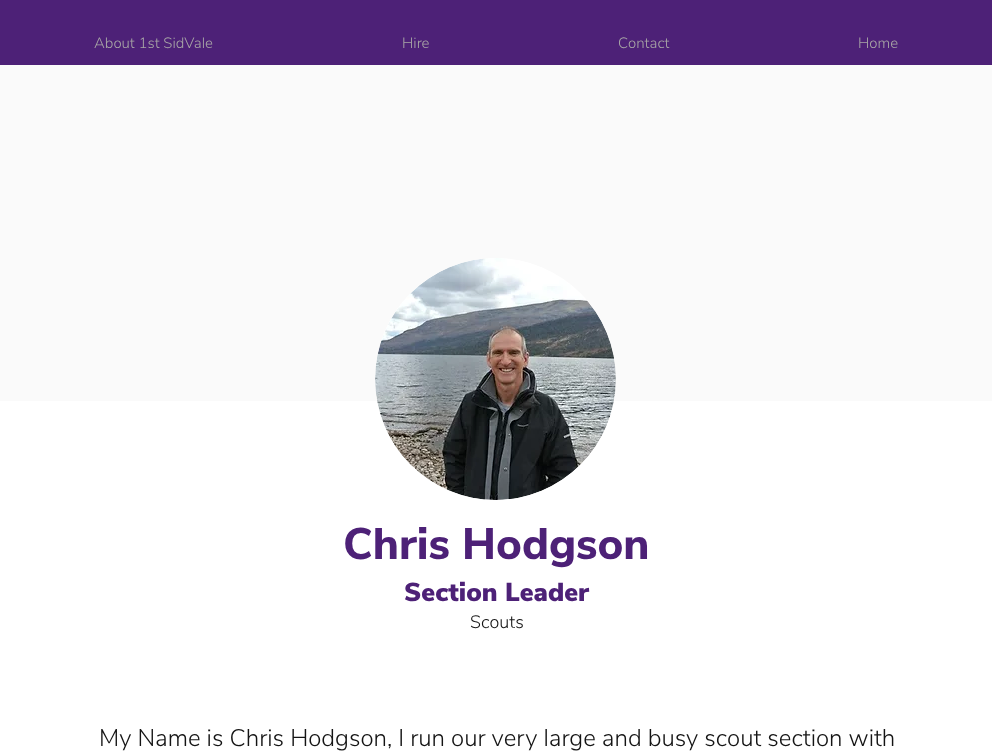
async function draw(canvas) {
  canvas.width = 992
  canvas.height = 753
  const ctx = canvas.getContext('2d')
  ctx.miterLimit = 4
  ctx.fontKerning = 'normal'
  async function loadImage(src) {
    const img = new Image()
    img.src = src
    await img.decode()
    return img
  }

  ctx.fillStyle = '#fff'
  ctx.fillRect(0, 0, 992, 753)
  ctx.fillStyle = '#4d2177'
  ctx.fillRect(0, 0, 992, 65)
  ctx.font = '300 15px Nunito Sans'
  ctx.fillStyle = '#a8a6a6'
  ctx.fillText('About 1st SidVale', 94, 48)
  ctx.fillText('Hire', 402, 48)
  ctx.fillText('Contact', 618, 48)
  ctx.fillText('Home', 858, 48)
  ctx.fillStyle = '#fafafa'
  ctx.fillRect(0, 65, 992, 336)
  ctx.fillStyle = '#fff'
  ctx.beginPath()
  ctx.roundRect(375, 258, 241, 242, 120.5)
  ctx.fill()
  ctx.drawImage(await loadImage('image0.png'), 375, 258, 241, 242)
  ctx.font = '800 44px Nunito Sans'
  ctx.fillStyle = '#4d2177'
  ctx.fillText('Chris Hodgson', 343, 559)
  ctx.font = '900 26px Nunito Sans'
  ctx.fillText('Section Leader', 404, 601)
  ctx.font = '300 18px Nunito Sans'
  ctx.fillStyle = '#141414'
  ctx.fillText('Scouts', 470, 628)
  ctx.font = '300 24px Nunito Sans'
  ctx.fillText('My Name is Chris Hodgson, I run our very large and busy scout section with', 99, 746)
}

draw(document.querySelector('canvas'))
